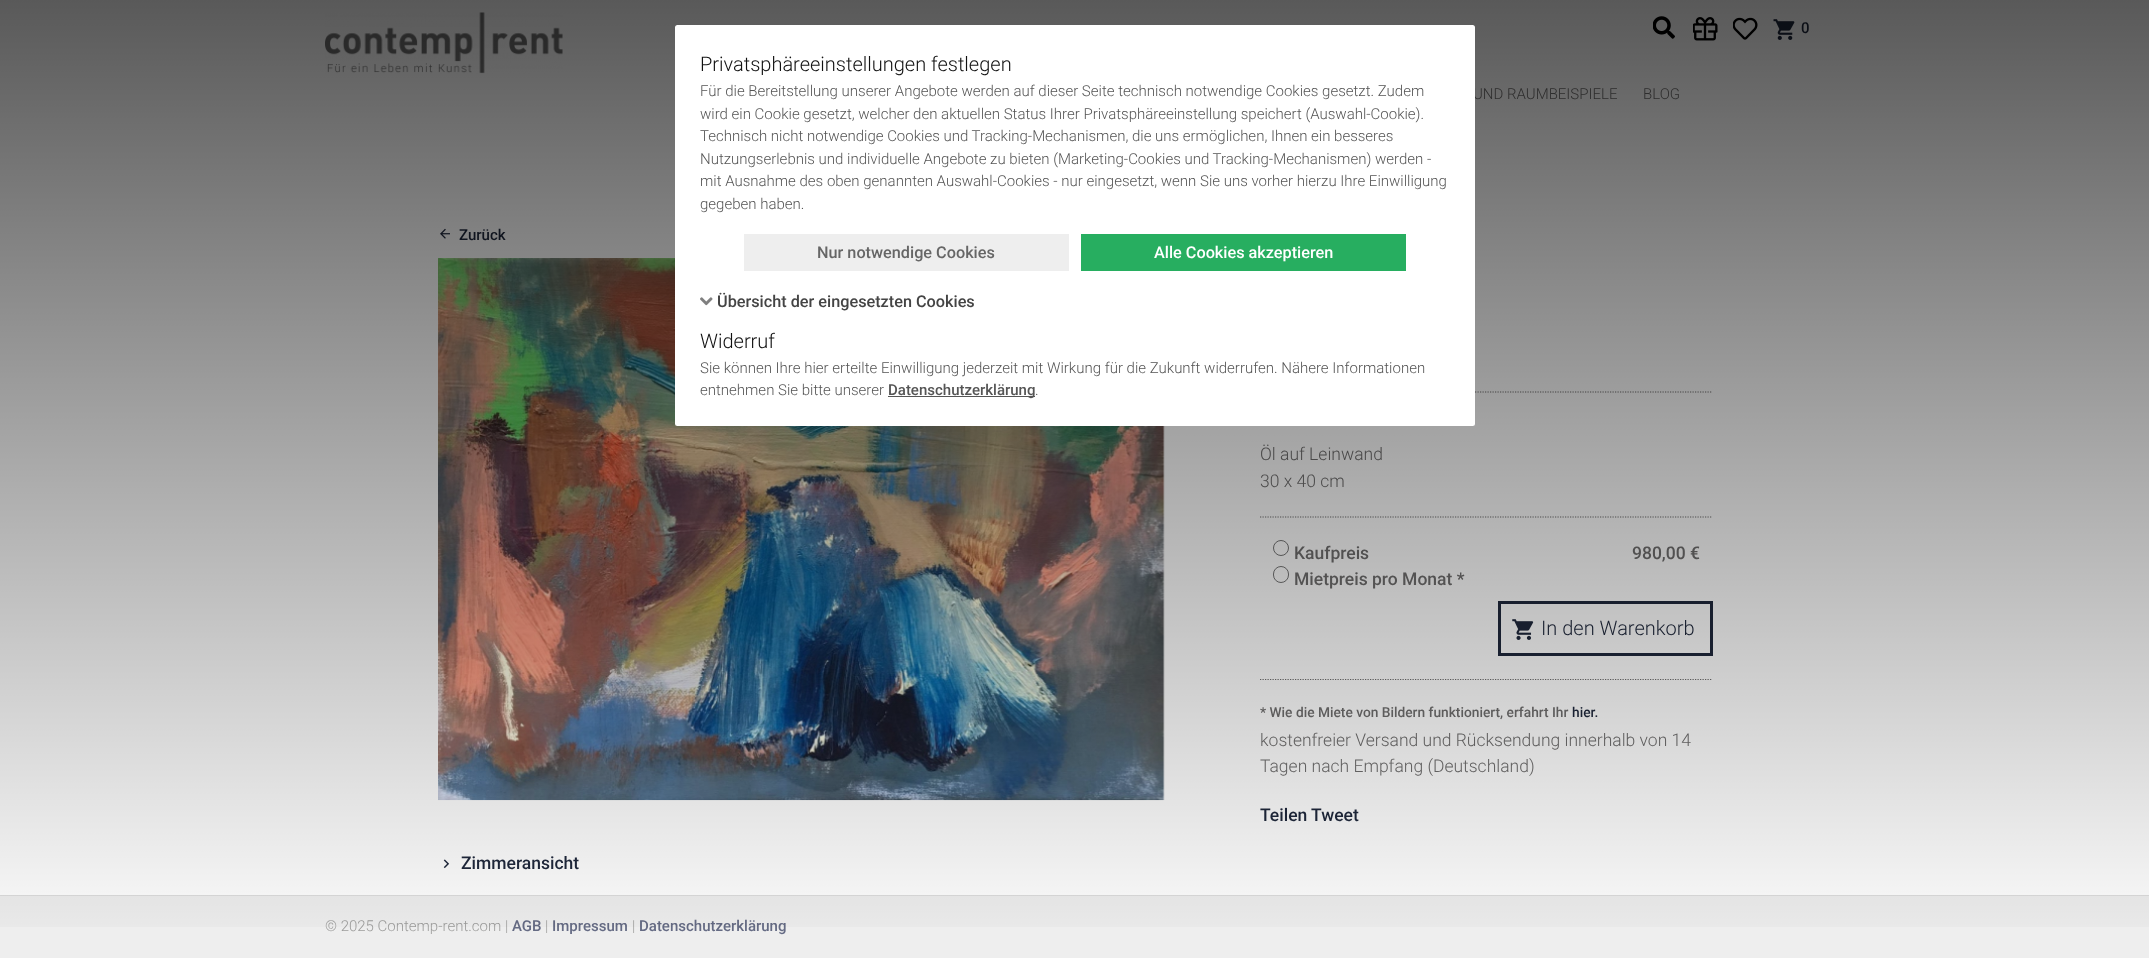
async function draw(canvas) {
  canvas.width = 2149
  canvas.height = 958
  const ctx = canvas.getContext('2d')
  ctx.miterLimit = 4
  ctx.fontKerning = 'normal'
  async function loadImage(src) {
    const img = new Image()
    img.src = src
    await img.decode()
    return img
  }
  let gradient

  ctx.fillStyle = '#fff'
  ctx.fillRect(0, 0, 2149, 958)
  ctx.drawImage(await loadImage('image0.png'), 325, 12, 238, 62)
  ctx.drawImage(await loadImage('image1.png'), 1653, 16, 22, 23)
  ctx.drawImage(await loadImage('image2.png'), 1693, 17, 25, 24)
  ctx.drawImage(await loadImage('image3.png'), 1733, 17, 25, 23)
  ctx.drawImage(await loadImage('image4.png'), 1773, 19, 22, 21)
  ctx.font = '500 15px Roboto'
  ctx.fillStyle = '#1f283c'
  ctx.fillText('0', 1801, 33)
  ctx.font = '300 15px Roboto'
  ctx.fillStyle = '#706f6f'
  ctx.fillText('UND RAUMBEISPIELE', 1473, 99)
  ctx.fillText('BLOG', 1643, 99)
  ctx.drawImage(await loadImage('image5.png'), 440, 228, 10, 11)
  ctx.font = '500 15px Roboto'
  ctx.fillStyle = '#1f283c'
  ctx.fillText('Zurück', 459, 240)
  ctx.drawImage(await loadImage('image6.png'), 438, 258, 727, 543)
  ctx.drawImage(await loadImage('image7.png'), 443, 859, 7, 10)
  ctx.font = '500 17.5px Roboto'
  ctx.fillText('Zimmeransicht', 461, 869)
  ctx.beginPath()
  ctx.moveTo(1260, 392)
  ctx.lineTo(1712.5, 392)
  ctx.strokeStyle = '#706f6f'
  ctx.lineWidth = 1.2
  ctx.setLineDash([1.25, 1.25])
  ctx.stroke()
  ctx.beginPath()
  ctx.moveTo(1260, 517)
  ctx.lineTo(1712.5, 517)
  ctx.stroke()
  ctx.font = '300 17.5px Roboto'
  ctx.fillStyle = '#706f6f'
  ctx.fillText('Öl auf Leinwand', 1260, 460)
  ctx.fillText('30 x 40 cm', 1260, 487)
  ctx.beginPath()
  ctx.moveTo(1260, 679.5)
  ctx.lineTo(1712.5, 679.5)
  ctx.stroke()
  ctx.beginPath()
  ctx.arc(1281, 548, 7.5, 0, 2 * Math.PI)
  ctx.strokeStyle = '#767676'
  ctx.lineWidth = 1
  ctx.setLineDash([])
  ctx.stroke()
  ctx.font = '500 17.5px Roboto'
  ctx.fillText('Kaufpreis', 1294, 559)
  ctx.fillText('980,00 €', 1632, 559)
  ctx.beginPath()
  ctx.roundRect(1273.5, 566.5, 15, 16, 7.5)
  ctx.stroke()
  ctx.fillText('Mietpreis pro Monat *', 1294, 585)
  ctx.strokeStyle = '#1f283c'
  ctx.lineWidth = 3
  ctx.strokeRect(1499.5, 602.5, 212, 52)
  ctx.drawImage(await loadImage('image8.png'), 1512, 619, 22, 21)
  ctx.font = '300 20px Roboto'
  ctx.fillStyle = '#1f283c'
  ctx.fillText('In den Warenkorb', 1541, 635)
  ctx.font = '500 13.75px Roboto'
  ctx.fillStyle = '#706f6f'
  ctx.fillText('* Wie die Miete von Bildern funktioniert, erfahrt Ihr', 1260, 717)
  ctx.fillStyle = '#1f283c'
  ctx.fillText('hier.', 1572, 717)
  ctx.font = '300 17.5px Roboto'
  ctx.fillStyle = '#706f6f'
  ctx.fillText('kostenfreier Versand und Rücksendung innerhalb von 14', 1260, 746)
  ctx.fillText('Tagen nach Empfang (Deutschland)', 1260, 772)
  ctx.font = '500 17.5px Roboto'
  ctx.fillStyle = '#1f283c'
  ctx.fillText('Teilen', 1260, 821)
  ctx.fillText('Tweet', 1311, 821)
  ctx.fillStyle = '#eee'
  ctx.fillRect(0, 896, 2149, 62)
  ctx.fillStyle = '#ddd'
  ctx.fillRect(0, 895, 2149, 1)
  ctx.font = '300 15px Roboto'
  ctx.fillStyle = '#9d9d9c'
  ctx.fillText('© 2025 Contemp-rent.com |', 325, 931)
  ctx.font = '500 15px Roboto'
  ctx.fillStyle = '#656b84'
  ctx.fillText('AGB', 512, 931)
  ctx.font = '300 15px Roboto'
  ctx.fillStyle = '#9d9d9c'
  ctx.fillText('|', 545, 931)
  ctx.font = '500 15px Roboto'
  ctx.fillStyle = '#656b84'
  ctx.fillText('Impressum', 552, 931)
  ctx.font = '300 15px Roboto'
  ctx.fillStyle = '#9d9d9c'
  ctx.fillText('|', 632, 931)
  ctx.font = '500 15px Roboto'
  ctx.fillStyle = '#656b84'
  ctx.fillText('Datenschutzerklärung', 639, 931)
  gradient = ctx.createLinearGradient(1075, 0, 1075, 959)
  gradient.addColorStop(0, '#000000a6')
  gradient.addColorStop(1, '#00000000')
  ctx.fillStyle = gradient
  ctx.fillRect(0, 0, 2149, 927)
  ctx.fillStyle = '#fff'
  ctx.beginPath()
  ctx.roundRect(675, 25, 800, 401, 2.5)
  ctx.fill()
  ctx.font = '300 20px Roboto'
  ctx.fillStyle = '#111'
  ctx.fillText('Privatsphäreeinstellungen festlegen', 700, 71)
  ctx.font = '300 15px Roboto'
  ctx.fillStyle = '#555'
  ctx.fillText('Für die Bereitstellung unserer Angebote werden auf dieser Seite technisch notwendige Cookies gesetzt. Zudem', 700, 96)
  ctx.fillText('wird ein Cookie gesetzt, welcher den aktuellen Status Ihrer Privatsphäreeinstellung speichert (Auswahl-Cookie).', 700, 119)
  ctx.fillText('Technisch nicht notwendige Cookies und Tracking-Mechanismen, die uns ermöglichen, Ihnen ein besseres', 700, 141)
  ctx.fillText('Nutzungserlebnis und individuelle Angebote zu bieten (Marketing-Cookies und Tracking-Mechanismen) werden -', 700, 164)
  ctx.fillText('mit Ausnahme des oben genannten Auswahl-Cookies - nur eingesetzt, wenn Sie uns vorher hierzu Ihre Einwilligung', 700, 186)
  ctx.fillText('gegeben haben.', 700, 209)
  ctx.fillStyle = '#eee'
  ctx.fillRect(744, 234, 325, 37)
  ctx.font = '500 16.25px Roboto'
  ctx.fillStyle = '#666'
  ctx.fillText('Nur notwendige Cookies', 817, 258)
  ctx.fillStyle = '#27ae60'
  ctx.fillRect(1081, 234, 325, 37)
  ctx.fillStyle = '#fff'
  ctx.fillText('Alle Cookies akzeptieren', 1154, 258)
  ctx.drawImage(await loadImage('image9.png'), 700, 297, 13, 9)
  ctx.fillStyle = '#444'
  ctx.fillText('Übersicht der eingesetzten Cookies', 717, 307)
  ctx.font = '300 20px Roboto'
  ctx.fillStyle = '#111'
  ctx.fillText('Widerruf', 700, 348)
  ctx.font = '300 15px Roboto'
  ctx.fillStyle = '#555'
  ctx.fillText('Sie können Ihre hier erteilte Einwilligung jederzeit mit Wirkung für die Zukunft widerrufen. Nähere Informationen', 700, 373)
  ctx.fillText('entnehmen Sie bitte unserer', 700, 395)
  ctx.fillRect(888, 396, 147, 1)
  ctx.font = '500 15px Roboto'
  ctx.fillText('Datenschutzerklärung', 888, 395)
  ctx.font = '300 15px Roboto'
  ctx.fillText('.', 1035, 395)
}

draw(document.querySelector('canvas'))
